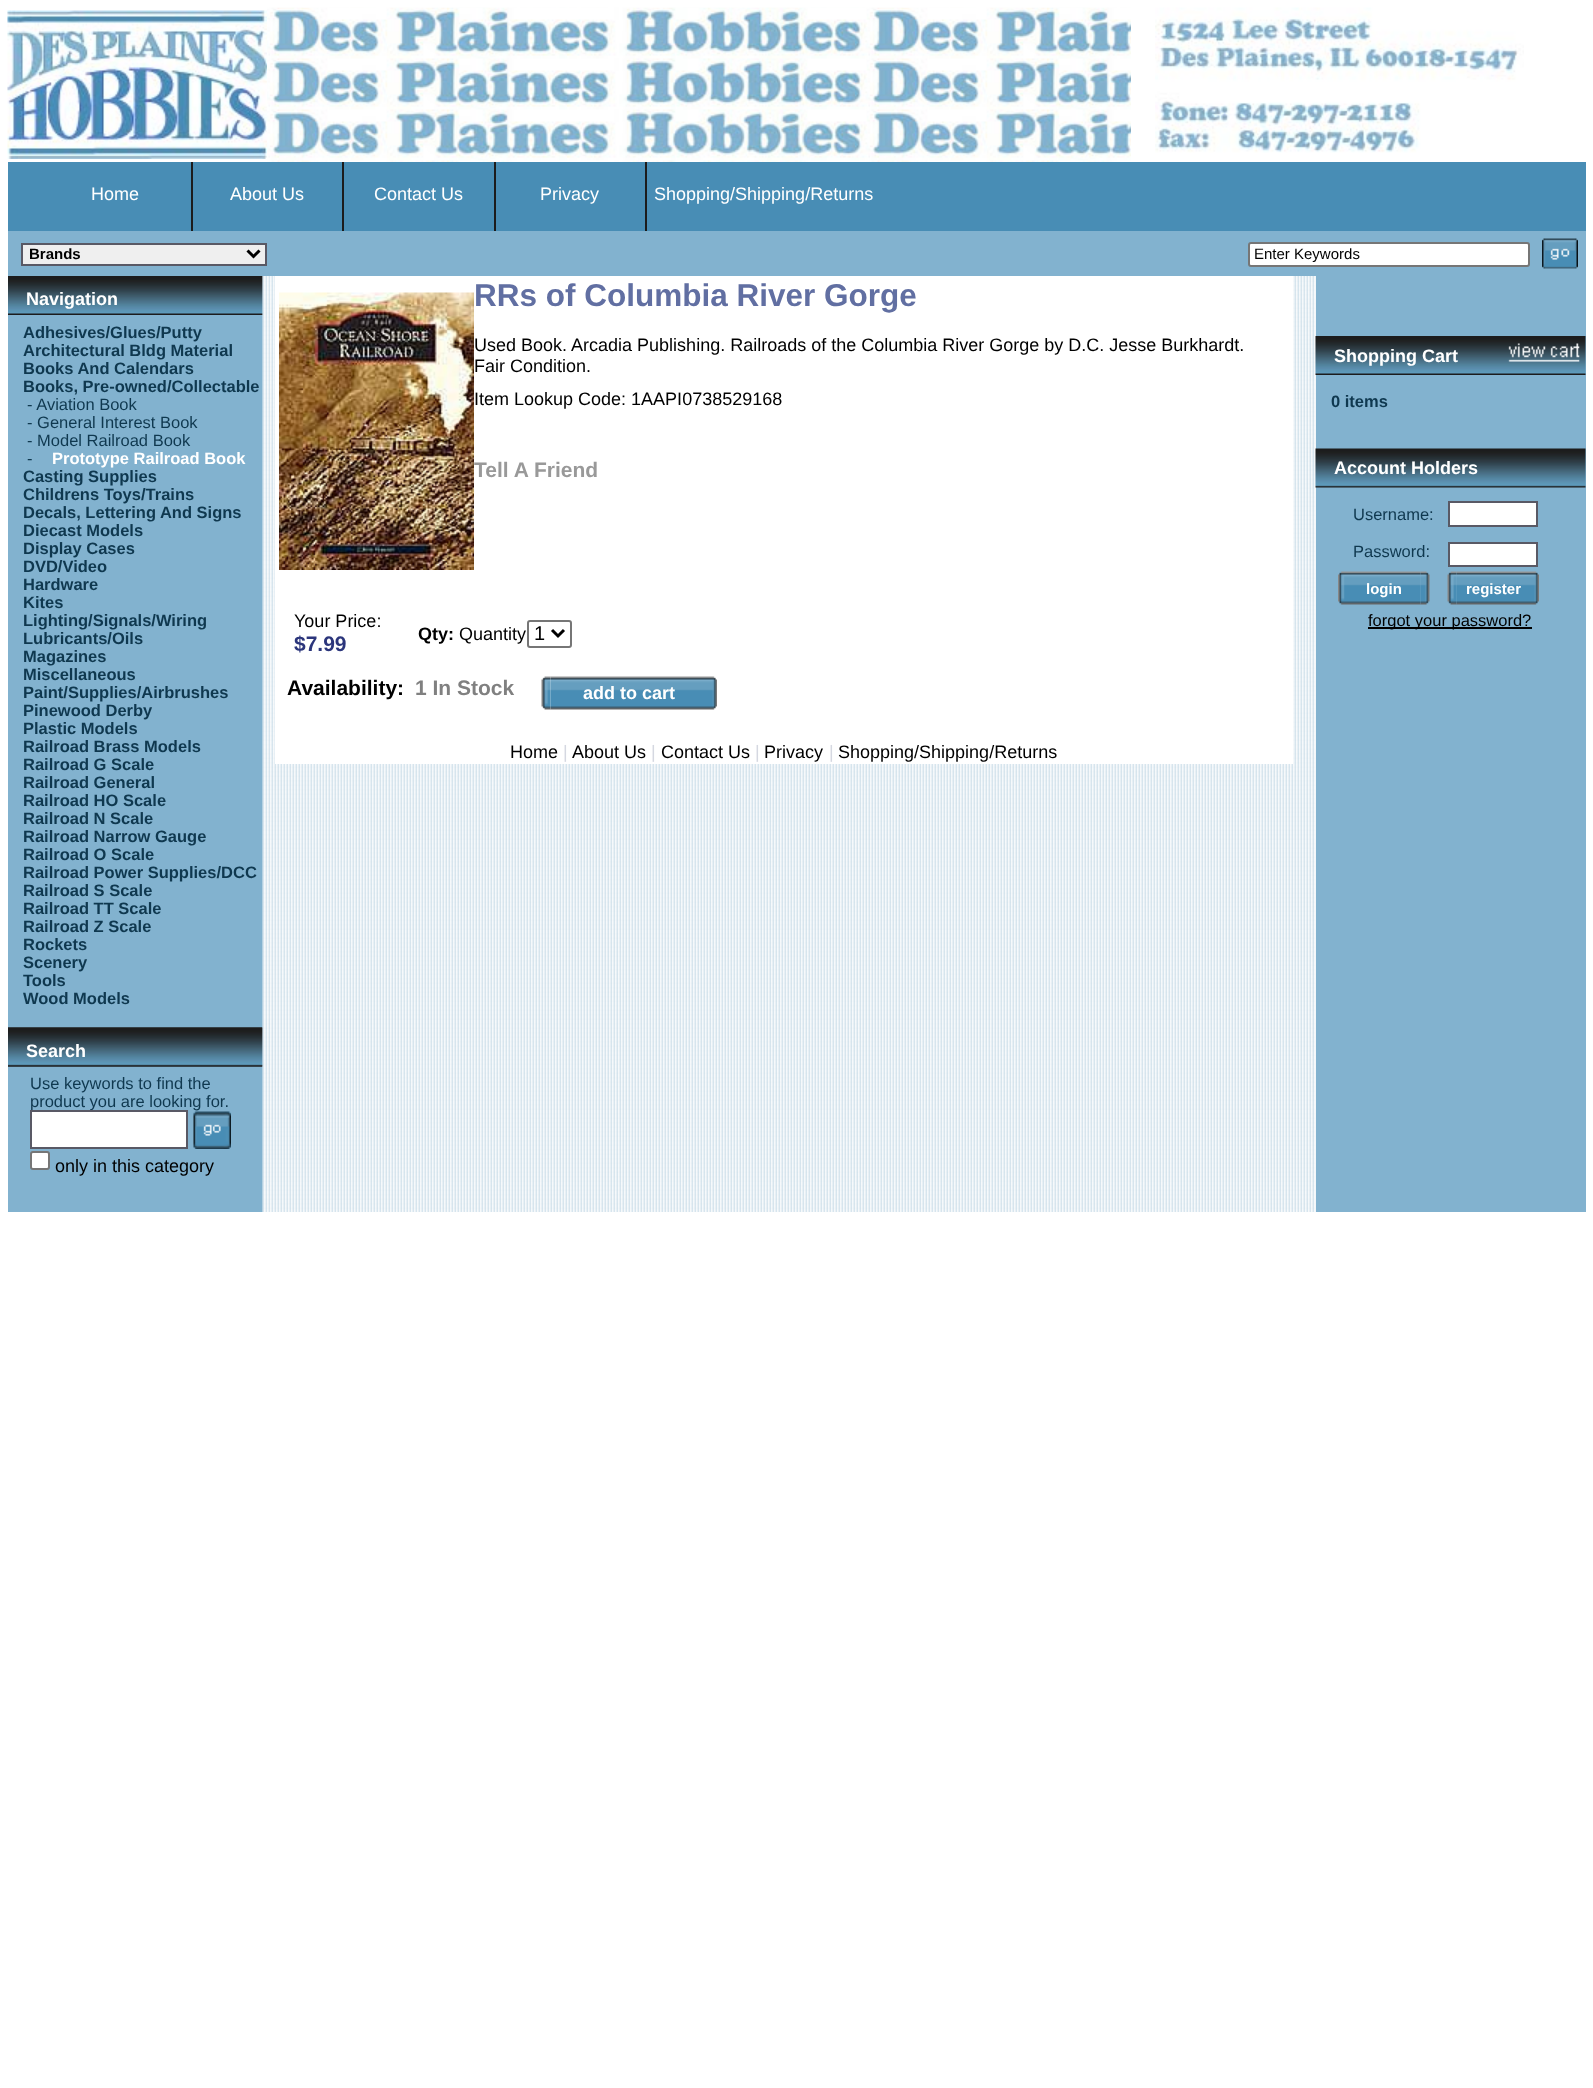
async function draw(canvas) {
  canvas.width = 1593
  canvas.height = 2088
  const ctx = canvas.getContext('2d')
  ctx.miterLimit = 4
  ctx.fontKerning = 'normal'
  async function loadImage(src) {
    const img = new Image()
    img.src = src
    await img.decode()
    return img
  }

  ctx.fillStyle = '#fff'
  ctx.fillRect(0, 0, 1593, 2088)
  ctx.drawImage(await loadImage('image0.png'), 7, 10, 260, 149)
  ctx.drawImage(await loadImage('image1.png'), 267, 7, 864, 155)
  ctx.drawImage(await loadImage('image2.png'), 1155, 7, 369, 146)
  ctx.fillStyle = '#488db5'
  ctx.fillRect(8, 162, 1578, 69)
  ctx.font = '18px Liberation Sans'
  ctx.fillStyle = '#fff'
  ctx.fillText('Home', 91, 200)
  ctx.fillStyle = '#1c1c1c'
  ctx.fillRect(191, 162, 2, 69)
  ctx.fillStyle = '#fff'
  ctx.fillText('About Us', 230, 200)
  ctx.fillStyle = '#1c1c1c'
  ctx.fillRect(342, 162, 2, 69)
  ctx.fillStyle = '#fff'
  ctx.fillText('Contact Us', 374, 200)
  ctx.fillStyle = '#1c1c1c'
  ctx.fillRect(494, 162, 2, 69)
  ctx.fillStyle = '#fff'
  ctx.fillText('Privacy', 540, 200)
  ctx.fillStyle = '#1c1c1c'
  ctx.fillRect(645, 162, 2, 69)
  ctx.fillStyle = '#fff'
  ctx.fillText('Shopping/Shipping/Returns', 654, 200)
  ctx.fillStyle = '#82b2cf'
  ctx.fillRect(8, 231, 1578, 45)
  ctx.fillStyle = '#efefef'
  ctx.beginPath()
  ctx.rect(22, 244, 244, 21)
  ctx.fill()
  ctx.strokeStyle = '#595965'
  ctx.lineWidth = 2
  ctx.stroke()
  ctx.beginPath()
  ctx.moveTo(247.5, 250.5)
  ctx.lineTo(253.5, 256.5)
  ctx.lineTo(259.5, 250.5)
  ctx.strokeStyle = '#000'
  ctx.lineWidth = 3
  ctx.stroke()
  ctx.font = 'bold 15px Liberation Sans'
  ctx.fillStyle = '#000'
  ctx.fillText('Brands', 29, 259)
  ctx.fillStyle = '#fff'
  ctx.beginPath()
  ctx.roundRect(1249, 243, 280, 23, 2)
  ctx.fill()
  ctx.strokeStyle = '#767676'
  ctx.lineWidth = 2
  ctx.stroke()
  ctx.font = '15px Liberation Sans'
  ctx.fillStyle = '#000'
  ctx.fillText('Enter Keywords', 1254, 259)
  ctx.drawImage(await loadImage('image3.png'), 1542, 238, 36, 31)
  ctx.fillStyle = '#82b2cf'
  ctx.fillRect(8, 276, 255, 936)
  ctx.drawImage(await loadImage('image4.png'), 262, 276, 1, 39)
  ctx.drawImage(await loadImage('image5.png'), 8, 276, 255, 39)
  ctx.font = 'bold 18px Liberation Sans'
  ctx.fillStyle = '#fff'
  ctx.fillText('Navigation', 26, 305)
  ctx.font = 'bold 16.5px Liberation Sans'
  ctx.fillStyle = '#0f384f'
  ctx.fillText('Adhesives/Glues/Putty', 23, 338)
  ctx.fillText('Architectural Bldg Material', 23, 356)
  ctx.fillText('Books And Calendars', 23, 374)
  ctx.fillText('Books, Pre-owned/Collectable', 23, 392)
  ctx.font = '16.5px Liberation Sans'
  ctx.fillText('- Aviation Book', 27, 410)
  ctx.fillText('- General Interest Book', 27, 428)
  ctx.fillText('- Model Railroad Book', 27, 446)
  ctx.fillText('-', 27, 464)
  ctx.font = 'bold 16.5px Liberation Sans'
  ctx.fillStyle = '#fff'
  ctx.fillText('Prototype Railroad Book', 52, 464)
  ctx.fillStyle = '#0f384f'
  ctx.fillText('Casting Supplies', 23, 482)
  ctx.fillText('Childrens Toys/Trains', 23, 500)
  ctx.fillText('Decals, Lettering And Signs', 23, 518)
  ctx.fillText('Diecast Models', 23, 536)
  ctx.fillText('Display Cases', 23, 554)
  ctx.fillText('DVD/Video', 23, 572)
  ctx.fillText('Hardware', 23, 590)
  ctx.fillText('Kites', 23, 608)
  ctx.fillText('Lighting/Signals/Wiring', 23, 626)
  ctx.fillText('Lubricants/Oils', 23, 644)
  ctx.fillText('Magazines', 23, 662)
  ctx.fillText('Miscellaneous', 23, 680)
  ctx.fillText('Paint/Supplies/Airbrushes', 23, 698)
  ctx.fillText('Pinewood Derby', 23, 716)
  ctx.fillText('Plastic Models', 23, 734)
  ctx.fillText('Railroad Brass Models', 23, 752)
  ctx.fillText('Railroad G Scale', 23, 770)
  ctx.fillText('Railroad General', 23, 788)
  ctx.fillText('Railroad HO Scale', 23, 806)
  ctx.fillText('Railroad N Scale', 23, 824)
  ctx.fillText('Railroad Narrow Gauge', 23, 842)
  ctx.fillText('Railroad O Scale', 23, 860)
  ctx.fillText('Railroad Power Supplies/DCC', 23, 878)
  ctx.fillText('Railroad S Scale', 23, 896)
  ctx.fillText('Railroad TT Scale', 23, 914)
  ctx.fillText('Railroad Z Scale', 23, 932)
  ctx.fillText('Rockets', 23, 950)
  ctx.fillText('Scenery', 23, 968)
  ctx.fillText('Tools', 23, 986)
  ctx.fillText('Wood Models', 23, 1004)
  ctx.drawImage(await loadImage('image6.png'), 8, 1027, 255, 40)
  ctx.drawImage(await loadImage('image7.png'), 8, 1027, 255, 40)
  ctx.font = 'bold 18px Liberation Sans'
  ctx.fillStyle = '#fff'
  ctx.fillText('Search', 26, 1057)
  ctx.font = '16.5px Liberation Sans'
  ctx.fillStyle = '#0f384f'
  ctx.fillText('Use keywords to find the', 30, 1089)
  ctx.fillText('product you are looking for.', 30, 1107)
  ctx.fillStyle = '#fff'
  ctx.beginPath()
  ctx.rect(31, 1111, 156, 37)
  ctx.fill()
  ctx.strokeStyle = '#595965'
  ctx.stroke()
  ctx.drawImage(await loadImage('image8.png'), 193, 1111, 38, 38)
  ctx.beginPath()
  ctx.roundRect(31, 1152, 18, 17, 2)
  ctx.fill()
  ctx.strokeStyle = '#767676'
  ctx.stroke()
  ctx.font = '18px Liberation Sans'
  ctx.fillStyle = '#000'
  ctx.fillText('only in this category', 55, 1172)
  ctx.drawImage(await loadImage('image9.png'), 262, 276, 1054, 936)
  ctx.fillStyle = '#fff'
  ctx.fillRect(275, 276, 1018, 488)
  ctx.drawImage(await loadImage('image10.png'), 279, 292, 195, 278)
  ctx.font = 'bold 31.5px Liberation Sans'
  ctx.fillStyle = '#616fa2'
  ctx.fillText('RRs of Columbia River Gorge', 474, 306)
  ctx.font = '18px Liberation Sans'
  ctx.fillStyle = '#000'
  ctx.fillText('Used Book. Arcadia Publishing. Railroads of the Columbia River Gorge by D.C. Jesse Burkhardt.', 474, 351)
  ctx.fillText('Fair Condition.', 474, 372)
  ctx.fillText('Item Lookup Code: 1AAPI0738529168', 474, 405)
  ctx.font = 'bold 21px Liberation Sans'
  ctx.fillStyle = '#999'
  ctx.fillText('Tell A Friend', 474, 477)
  ctx.font = '18px Liberation Sans'
  ctx.fillStyle = '#000'
  ctx.fillText('Your Price:', 294, 627)
  ctx.font = 'bold 21px Liberation Sans'
  ctx.fillStyle = '#2b357b'
  ctx.fillText('$7.99', 294, 651)
  ctx.font = 'bold 18px Liberation Sans'
  ctx.fillStyle = '#000'
  ctx.fillText('Qty:', 418, 640)
  ctx.font = '18px Liberation Sans'
  ctx.fillText('Quantity', 459, 640)
  ctx.beginPath()
  ctx.roundRect(528, 621, 43, 26, 2)
  ctx.stroke()
  ctx.beginPath()
  ctx.moveTo(552, 630)
  ctx.lineTo(558, 636)
  ctx.lineTo(564, 630)
  ctx.strokeStyle = '#000'
  ctx.lineWidth = 3
  ctx.stroke()
  ctx.font = '20px Liberation Sans'
  ctx.fillText('1', 534, 640)
  ctx.font = 'bold 21px Liberation Sans'
  ctx.fillText('Availability:', 287, 695)
  ctx.fillStyle = '#808080'
  ctx.fillText('1 In Stock', 415, 695)
  ctx.drawImage(await loadImage('image11.png'), 541, 676, 10, 34)
  ctx.drawImage(await loadImage('image12.png'), 550, 676, 158, 34)
  ctx.font = 'bold 18px Liberation Sans'
  ctx.fillStyle = '#fff'
  ctx.fillText('add to cart', 583, 699)
  ctx.drawImage(await loadImage('image13.png'), 708, 676, 9, 34)
  ctx.font = '18px Liberation Sans'
  ctx.fillStyle = '#000'
  ctx.fillText('Home', 510, 758)
  ctx.fillStyle = '#d5d8e1'
  ctx.fillText('|', 563, 758)
  ctx.fillStyle = '#000'
  ctx.fillText('About Us', 572, 758)
  ctx.fillStyle = '#d5d8e1'
  ctx.fillText('|', 651, 758)
  ctx.fillStyle = '#000'
  ctx.fillText('Contact Us', 661, 758)
  ctx.fillStyle = '#d5d8e1'
  ctx.fillText('|', 755, 758)
  ctx.fillStyle = '#000'
  ctx.fillText('Privacy', 764, 758)
  ctx.fillStyle = '#d5d8e1'
  ctx.fillText('|', 829, 758)
  ctx.fillStyle = '#000'
  ctx.fillText('Shopping/Shipping/Returns', 838, 758)
  ctx.fillStyle = '#82b2cf'
  ctx.fillRect(1316, 276, 270, 936)
  ctx.drawImage(await loadImage('image14.png'), 1315, 336, 271, 39)
  ctx.font = 'bold 18px Liberation Sans'
  ctx.fillStyle = '#fff'
  ctx.fillText('Shopping Cart', 1334, 362)
  ctx.drawImage(await loadImage('image15.png'), 1508, 343, 72, 19)
  ctx.font = 'bold 16.5px Liberation Sans'
  ctx.fillStyle = '#0f384f'
  ctx.fillText('0 items', 1331, 407)
  ctx.drawImage(await loadImage('image16.png'), 1315, 448, 271, 40)
  ctx.font = 'bold 18px Liberation Sans'
  ctx.fillStyle = '#fff'
  ctx.fillText('Account Holders', 1334, 474)
  ctx.font = '16.5px Liberation Sans'
  ctx.fillStyle = '#0f384f'
  ctx.fillText('Username:', 1353, 520)
  ctx.fillStyle = '#fff'
  ctx.beginPath()
  ctx.rect(1449, 502, 88, 24)
  ctx.fill()
  ctx.strokeStyle = '#595965'
  ctx.lineWidth = 2
  ctx.stroke()
  ctx.fillStyle = '#0f384f'
  ctx.fillText('Password:', 1353, 557)
  ctx.fillStyle = '#fff'
  ctx.beginPath()
  ctx.rect(1449, 543, 88, 23)
  ctx.fill()
  ctx.stroke()
  ctx.drawImage(await loadImage('image17.png'), 1338, 571, 9, 34)
  ctx.drawImage(await loadImage('image18.png'), 1347, 571, 74, 34)
  ctx.font = 'bold 15px Liberation Sans'
  ctx.fillText('login', 1366, 594)
  ctx.drawImage(await loadImage('image19.png'), 1420, 571, 10, 34)
  ctx.drawImage(await loadImage('image20.png'), 1447, 571, 10, 34)
  ctx.drawImage(await loadImage('image21.png'), 1456, 571, 74, 34)
  ctx.fillText('register', 1466, 594)
  ctx.drawImage(await loadImage('image22.png'), 1530, 571, 9, 34)
  ctx.fillStyle = '#000'
  ctx.fillRect(1368, 627, 164, 2)
  ctx.font = '16.5px Liberation Sans'
  ctx.fillText('forgot your password?', 1368, 626)
}

draw(document.querySelector('canvas'))
